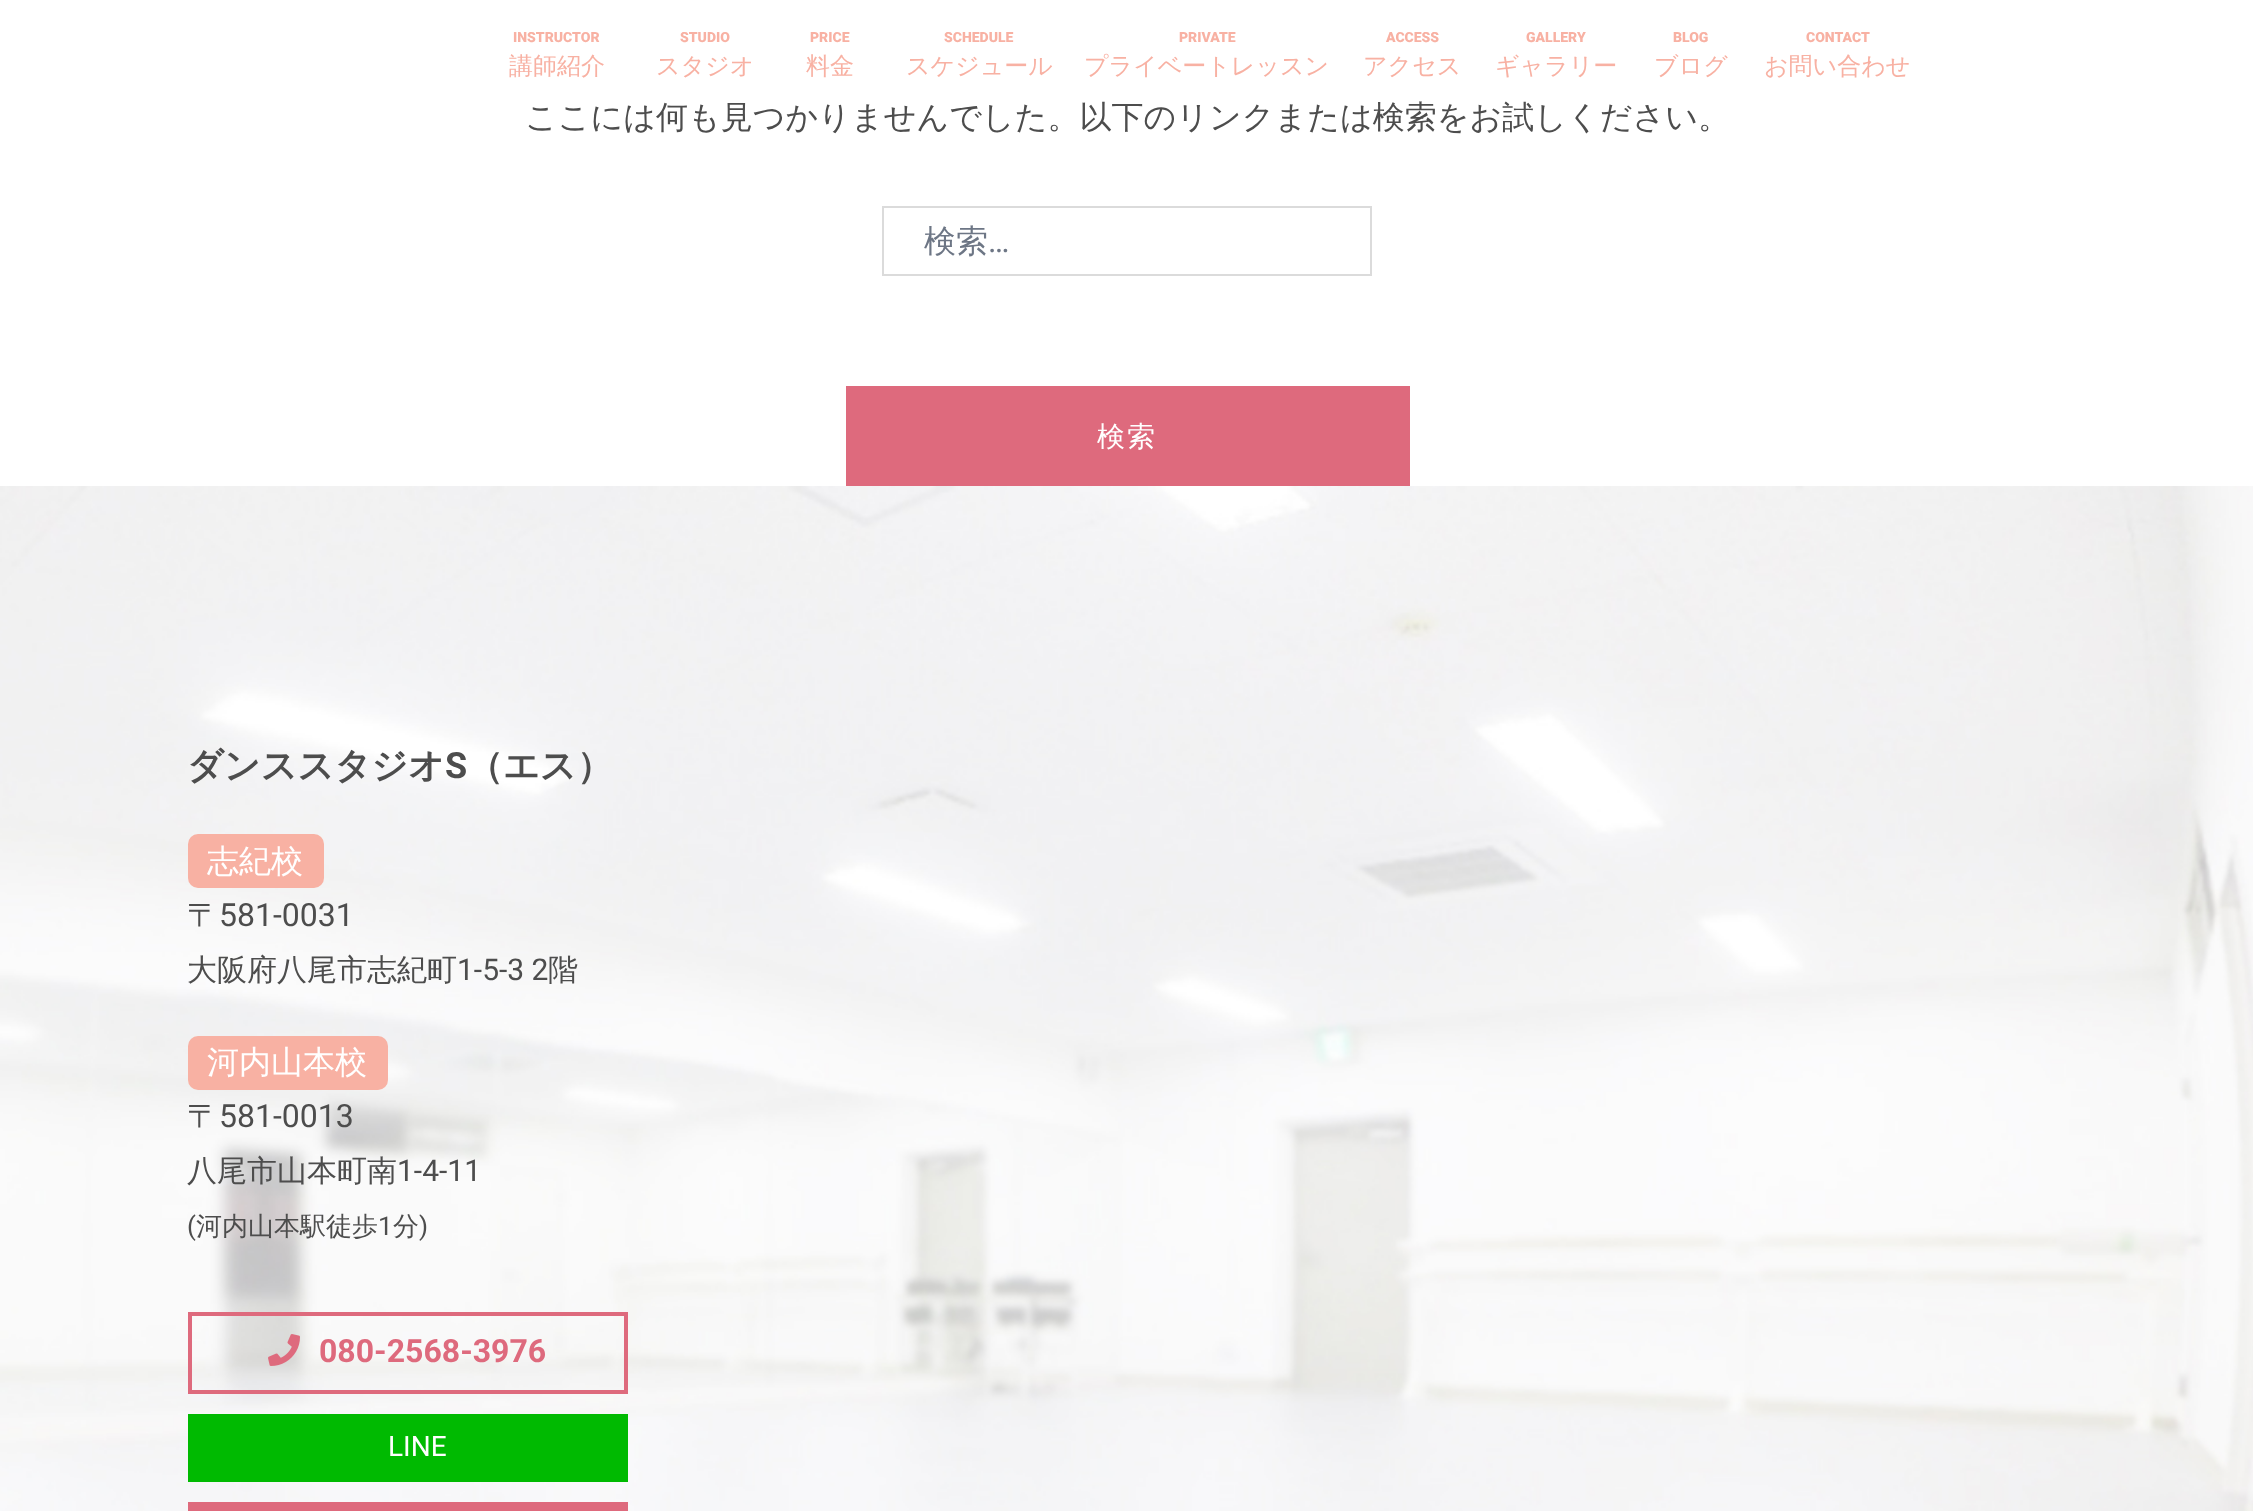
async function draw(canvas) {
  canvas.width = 2253
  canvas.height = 1511
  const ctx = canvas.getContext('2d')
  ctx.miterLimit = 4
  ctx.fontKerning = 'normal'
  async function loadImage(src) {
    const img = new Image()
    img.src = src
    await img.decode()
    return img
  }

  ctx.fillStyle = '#fff'
  ctx.fillRect(0, 0, 2253, 1511)
  ctx.font = '900 14px Roboto'
  ctx.fillStyle = '#f8b1a3'
  ctx.fillText('INSTRUCTOR', 513, 42)
  ctx.font = '500 24px WenQuanYi Zen Hei'
  ctx.fillText('講師紹介', 509, 74)
  ctx.font = '900 14px Roboto'
  ctx.fillText('STUDIO', 680, 42)
  ctx.font = '500 24px WenQuanYi Zen Hei'
  ctx.fillText('スタジオ', 656, 74)
  ctx.font = '900 14px Roboto'
  ctx.fillText('PRICE', 810, 42)
  ctx.font = '500 24px WenQuanYi Zen Hei'
  ctx.fillText('料金', 806, 74)
  ctx.font = '900 14px Roboto'
  ctx.fillText('SCHEDULE', 944, 42)
  ctx.font = '500 24px WenQuanYi Zen Hei'
  ctx.fillText('スケジュール', 906, 74)
  ctx.font = '900 14px Roboto'
  ctx.fillText('PRIVATE', 1179, 42)
  ctx.font = '500 24px WenQuanYi Zen Hei'
  ctx.fillText('プライベートレッスン', 1084, 74)
  ctx.font = '900 14px Roboto'
  ctx.fillText('ACCESS', 1386, 42)
  ctx.font = '500 24px WenQuanYi Zen Hei'
  ctx.fillText('アクセス', 1363, 74)
  ctx.font = '900 14px Roboto'
  ctx.fillText('GALLERY', 1526, 42)
  ctx.font = '500 24px WenQuanYi Zen Hei'
  ctx.fillText('ギャラリー', 1495, 74)
  ctx.font = '900 14px Roboto'
  ctx.fillText('BLOG', 1673, 42)
  ctx.font = '500 24px WenQuanYi Zen Hei'
  ctx.fillText('ブログ', 1654, 74)
  ctx.font = '900 14px Roboto'
  ctx.fillText('CONTACT', 1806, 42)
  ctx.font = '500 24px WenQuanYi Zen Hei'
  ctx.fillText('お問い合わせ', 1764, 74)
  ctx.font = '500 32px WenQuanYi Zen Hei'
  ctx.fillStyle = '#4d4d4d'
  ctx.fillText('ここには何も見つかりませんでした。以下のリンクまたは検索をお試しください。', 525, 128)
  ctx.strokeStyle = '#dbdbdb'
  ctx.lineWidth = 2
  ctx.strokeRect(883, 207, 488, 68)
  ctx.fillStyle = '#6d7685'
  ctx.fillText('検索', 924, 252)
  ctx.font = '32px Roboto'
  ctx.fillText('…', 988, 252)
  ctx.fillStyle = '#de6a7d'
  ctx.fillRect(846, 386, 564, 100)
  ctx.letterSpacing = '2px'
  ctx.font = '500 28px WenQuanYi Zen Hei'
  ctx.fillStyle = '#fff'
  ctx.fillText('検索', 1097, 446)
  ctx.drawImage(await loadImage('image0.png'), 0, 486, 2253, 1025)
  ctx.letterSpacing = '0px'
  ctx.font = 'bold 36px WenQuanYi Zen Hei'
  ctx.fillStyle = '#4d4d4d'
  ctx.fillText('ダンススタジオ', 187, 778)
  ctx.font = 'bold 36px Roboto'
  ctx.fillText('S', 445, 778)
  ctx.font = 'bold 36px WenQuanYi Zen Hei'
  ctx.fillText('（エス）', 467, 778)
  ctx.fillStyle = '#f8b1a3'
  ctx.beginPath()
  ctx.roundRect(188, 834, 136, 54, 10)
  ctx.fill()
  ctx.font = '500 32px WenQuanYi Zen Hei'
  ctx.fillStyle = '#fff'
  ctx.fillText('志紀校', 207, 872)
  ctx.fillStyle = '#4d4d4d'
  ctx.fillText('〒', 187, 926)
  ctx.font = '32px Roboto'
  ctx.fillText('581-0031', 219, 926)
  ctx.font = '500 30px WenQuanYi Zen Hei'
  ctx.fillText('大阪府八尾市志紀町', 187, 980)
  ctx.font = '30px Roboto'
  ctx.fillText('1-5-3 2', 457, 980)
  ctx.font = '500 30px WenQuanYi Zen Hei'
  ctx.fillText('階', 548, 980)
  ctx.fillStyle = '#f8b1a3'
  ctx.beginPath()
  ctx.roundRect(188, 1036, 200, 54, 10)
  ctx.fill()
  ctx.font = '500 32px WenQuanYi Zen Hei'
  ctx.fillStyle = '#fff'
  ctx.fillText('河内山本校', 207, 1073)
  ctx.fillStyle = '#4d4d4d'
  ctx.fillText('〒', 187, 1127)
  ctx.font = '32px Roboto'
  ctx.fillText('581-0013', 219, 1127)
  ctx.font = '500 30px WenQuanYi Zen Hei'
  ctx.fillText('八尾市山本町南', 187, 1181)
  ctx.font = '30px Roboto'
  ctx.fillText('1-4-11', 397, 1181)
  ctx.font = '26px Roboto'
  ctx.fillText('(', 187, 1235)
  ctx.font = '500 26px WenQuanYi Zen Hei'
  ctx.fillText('河内山本駅徒歩', 196, 1235)
  ctx.font = '26px Roboto'
  ctx.fillText('1', 378, 1235)
  ctx.font = '500 26px WenQuanYi Zen Hei'
  ctx.fillText('分', 393, 1235)
  ctx.font = '26px Roboto'
  ctx.fillText(')', 419, 1235)
  ctx.strokeStyle = '#de6a7d'
  ctx.lineWidth = 4
  ctx.strokeRect(190, 1314, 436, 78)
  ctx.drawImage(await loadImage('image1.png'), 268, 1334, 32, 32)
  ctx.font = 'bold 32px Roboto'
  ctx.fillStyle = '#de6a7d'
  ctx.fillText('080-2568-3976', 319, 1362)
  ctx.fillStyle = '#00ba01'
  ctx.fillRect(188, 1414, 440, 68)
  ctx.font = '28px Roboto'
  ctx.fillStyle = '#fff'
  ctx.fillText('LINE', 388, 1456)
  ctx.fillStyle = '#de6a7d'
  ctx.fillRect(188, 1502, 440, 9)
}

draw(document.querySelector('canvas'))
